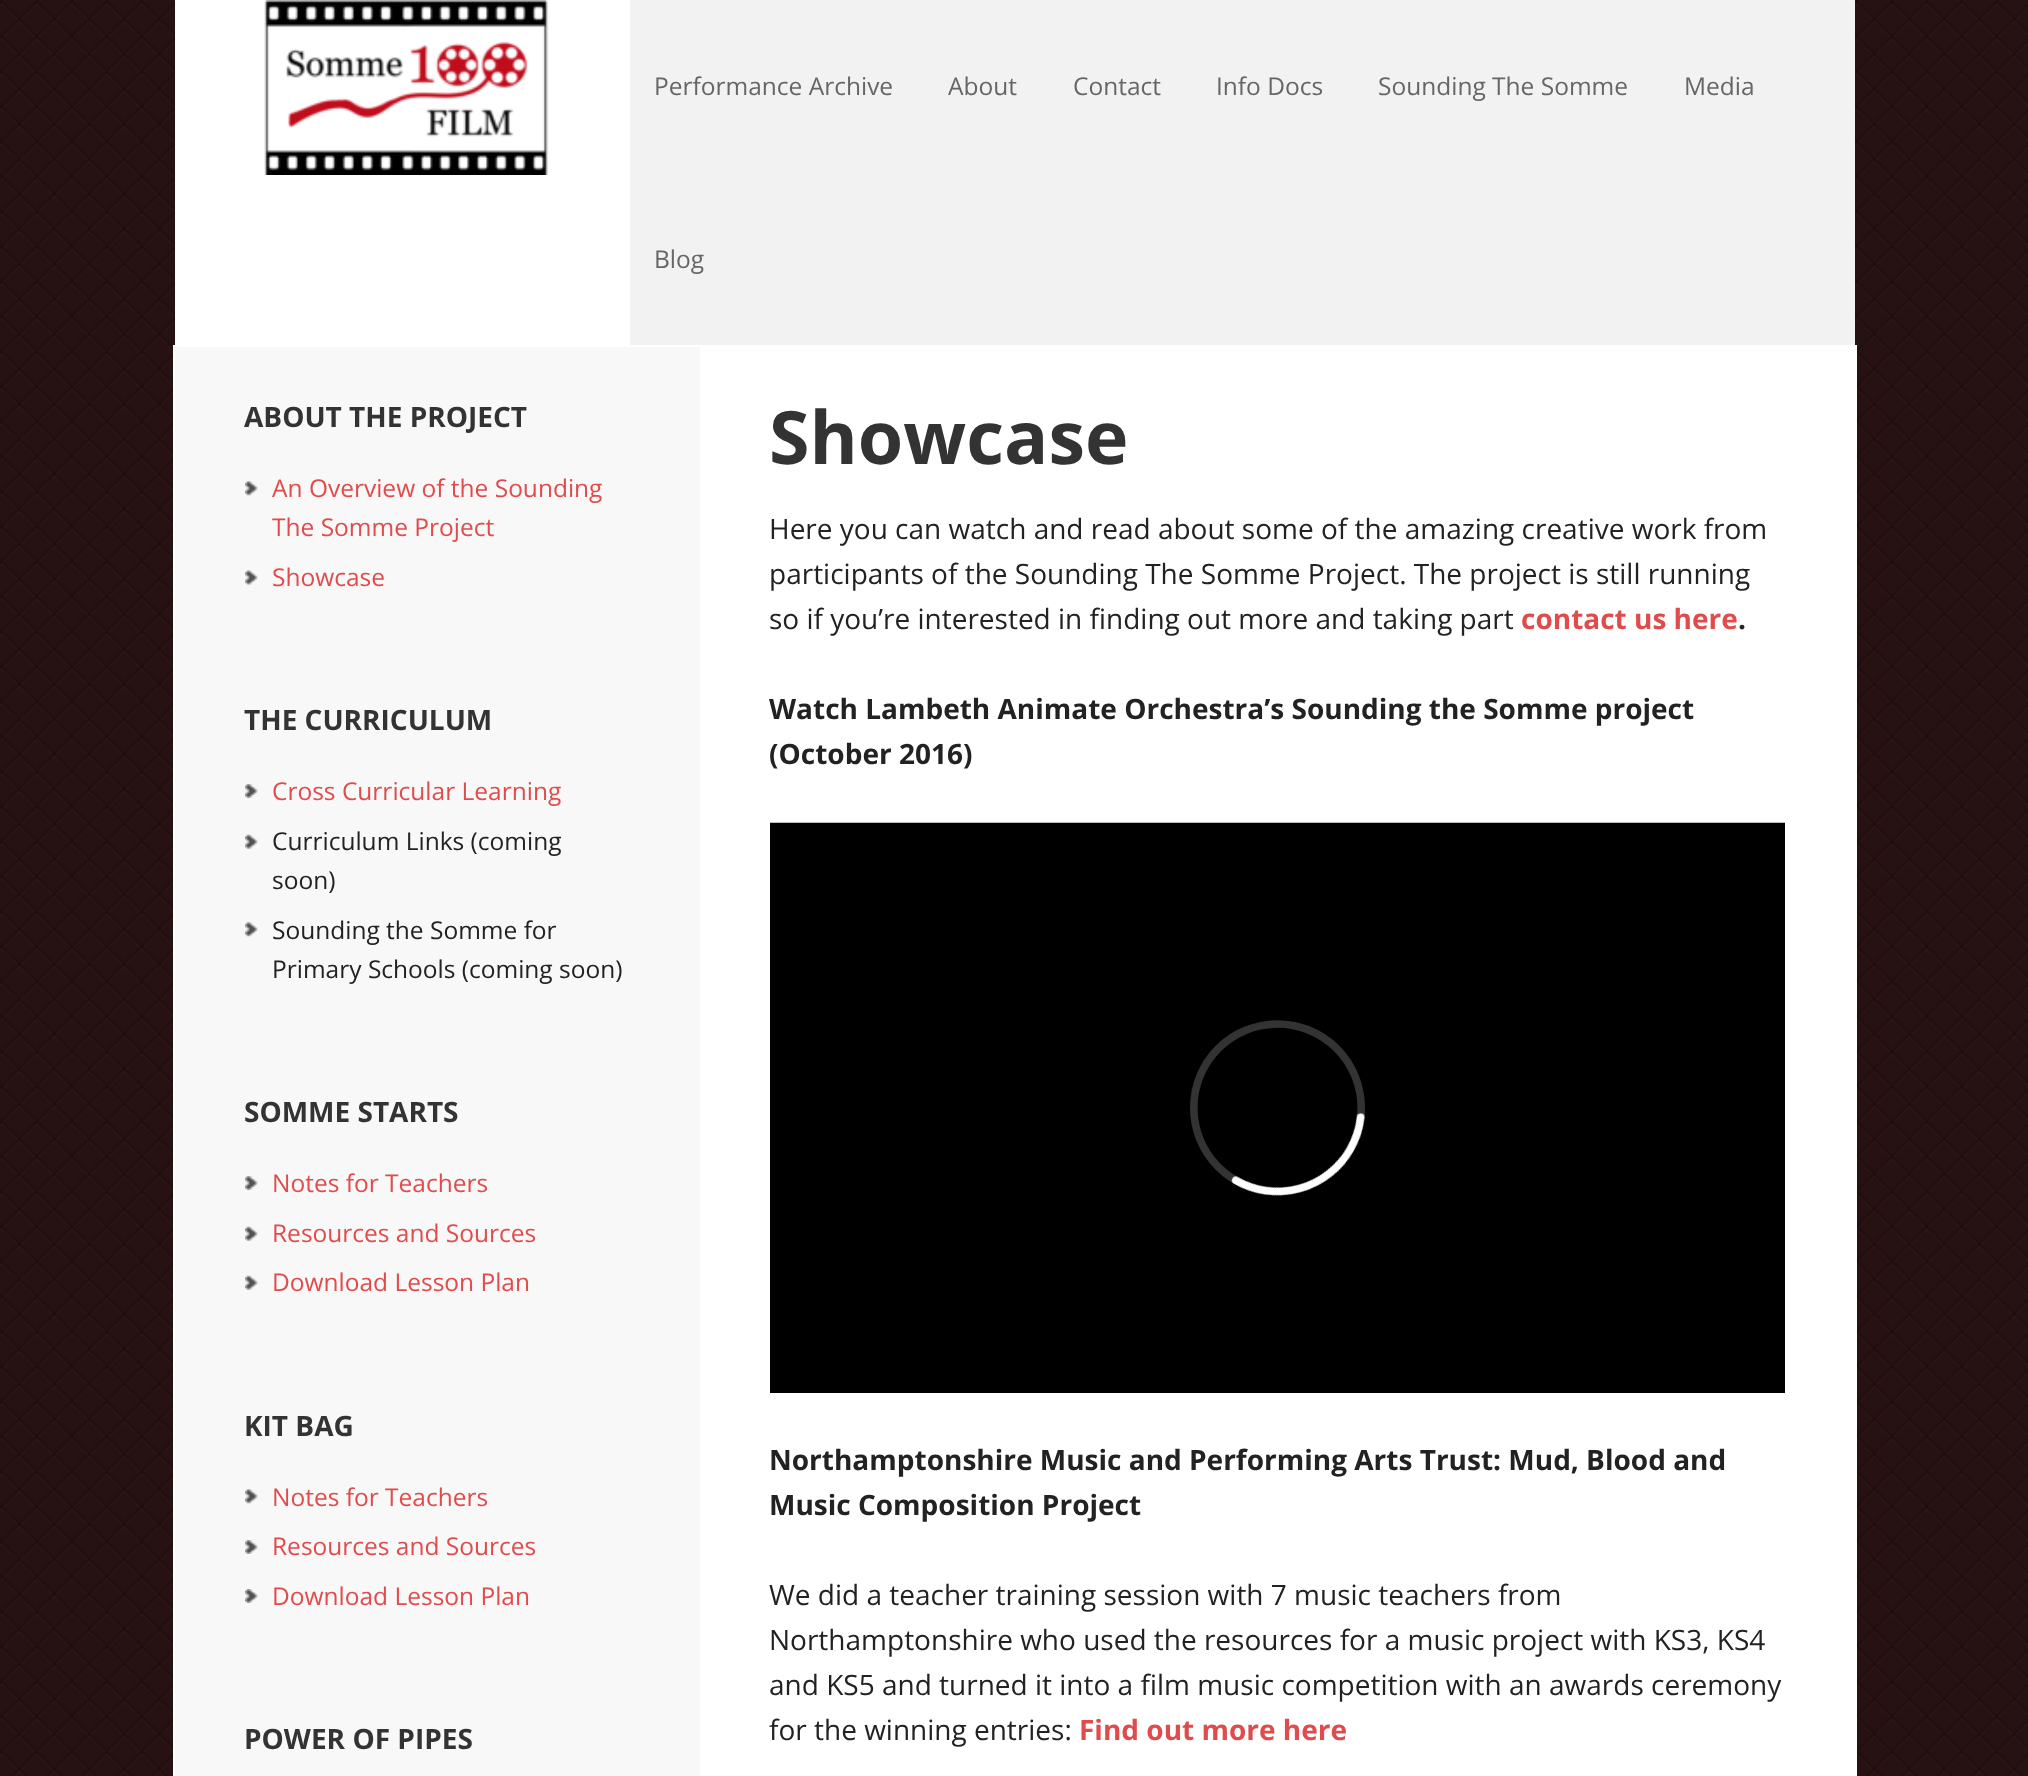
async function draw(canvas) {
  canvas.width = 2028
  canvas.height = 1776
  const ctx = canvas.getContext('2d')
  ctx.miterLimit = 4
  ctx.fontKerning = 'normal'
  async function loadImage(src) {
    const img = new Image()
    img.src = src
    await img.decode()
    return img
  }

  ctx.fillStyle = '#fff'
  ctx.fillRect(0, 0, 2028, 1776)
  ctx.drawImage(await loadImage('image0.png'), 0, 0, 2028, 1776)
  ctx.fillRect(175, 0, 455, 345)
  ctx.drawImage(await loadImage('image1.png'), 264, 0, 285, 175)
  ctx.fillStyle = '#f2f2f2'
  ctx.fillRect(630, 0, 1225, 345)
  ctx.font = '24.5px Open Sans'
  ctx.fillStyle = '#666'
  ctx.fillText('Performance Archive', 654, 95)
  ctx.fillText('About', 948, 95)
  ctx.fillText('Contact', 1073, 95)
  ctx.fillText('Info Docs', 1216, 95)
  ctx.fillText('Sounding The Somme', 1378, 95)
  ctx.fillText('Media', 1684, 95)
  ctx.fillText('Blog', 654, 268)
  ctx.strokeStyle = '#fff'
  ctx.lineWidth = 2
  ctx.strokeRect(174, 346, 1682, 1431)
  ctx.fillStyle = '#fff'
  ctx.fillRect(700, 347, 1155, 1429)
  ctx.fillStyle = '#f8f8f8'
  ctx.fillRect(175, 347, 525, 1429)
  ctx.font = 'bold 28px Open Sans'
  ctx.fillStyle = '#333'
  ctx.fillText('ABOUT THE PROJECT', 244, 427)
  ctx.drawImage(await loadImage('image2.png'), 245, 481, 13, 15)
  ctx.font = '24.5px Open Sans'
  ctx.fillStyle = '#e04b4b'
  ctx.fillText('An Overview of the Sounding', 272, 497)
  ctx.fillText('The Somme Project', 272, 536)
  ctx.drawImage(await loadImage('image3.png'), 245, 570, 13, 15)
  ctx.fillText('Showcase', 272, 586)
  ctx.font = 'bold 28px Open Sans'
  ctx.fillStyle = '#333'
  ctx.fillText('THE CURRICULUM', 244, 730)
  ctx.drawImage(await loadImage('image4.png'), 245, 784, 13, 14)
  ctx.font = '24.5px Open Sans'
  ctx.fillStyle = '#e04b4b'
  ctx.fillText('Cross Curricular Learning', 272, 800)
  ctx.drawImage(await loadImage('image5.png'), 245, 834, 13, 15)
  ctx.fillStyle = '#222'
  ctx.fillText('Curriculum Links (coming', 272, 850)
  ctx.fillText('soon)', 272, 889)
  ctx.drawImage(await loadImage('image2.png'), 245, 922, 13, 15)
  ctx.fillText('Sounding the Somme for', 272, 939)
  ctx.fillText('Primary Schools (coming soon)', 272, 978)
  ctx.font = 'bold 28px Open Sans'
  ctx.fillStyle = '#333'
  ctx.fillText('SOMME STARTS', 244, 1122)
  ctx.drawImage(await loadImage('image4.png'), 245, 1176, 13, 14)
  ctx.font = '24.5px Open Sans'
  ctx.fillStyle = '#e04b4b'
  ctx.fillText('Notes for Teachers', 272, 1192)
  ctx.drawImage(await loadImage('image5.png'), 245, 1226, 13, 15)
  ctx.fillText('Resources and Sources', 272, 1242)
  ctx.drawImage(await loadImage('image5.png'), 245, 1275, 13, 15)
  ctx.fillText('Download Lesson Plan', 272, 1291)
  ctx.font = 'bold 28px Open Sans'
  ctx.fillStyle = '#333'
  ctx.fillText('KIT BAG', 244, 1436)
  ctx.drawImage(await loadImage('image2.png'), 245, 1489, 13, 15)
  ctx.font = '24.5px Open Sans'
  ctx.fillStyle = '#e04b4b'
  ctx.fillText('Notes for Teachers', 272, 1506)
  ctx.drawImage(await loadImage('image4.png'), 245, 1540, 13, 14)
  ctx.fillText('Resources and Sources', 272, 1555)
  ctx.drawImage(await loadImage('image4.png'), 245, 1589, 13, 14)
  ctx.fillText('Download Lesson Plan', 272, 1605)
  ctx.font = 'bold 28px Open Sans'
  ctx.fillStyle = '#333'
  ctx.fillText('POWER OF PIPES', 244, 1749)
  ctx.font = 'bold 73.5px Open Sans'
  ctx.fillText('Showcase', 769, 464)
  ctx.font = '28px Open Sans'
  ctx.fillStyle = '#222'
  ctx.fillText('Here you can watch and read about some of the amazing creative work from', 769, 539)
  ctx.fillText('participants of the Sounding The Somme Project. The project is still running', 769, 584)
  ctx.fillText('so if you’re interested in finding out more and taking part', 769, 629)
  ctx.font = 'bold 28px Open Sans'
  ctx.fillStyle = '#e04b4b'
  ctx.fillText('contact us here', 1521, 629)
  ctx.fillStyle = '#222'
  ctx.fillText('.', 1738, 629)
  ctx.fillText('Watch Lambeth Animate Orchestra’s Sounding the Somme project', 769, 719)
  ctx.fillText('(October 2016)', 769, 764)
  ctx.drawImage(await loadImage('image6.png'), 770, 822, 1015, 571)
  ctx.fillText('Northamptonshire Music and Performing Arts Trust: Mud, Blood and', 769, 1470)
  ctx.fillText('Music Composition Project', 769, 1515)
  ctx.font = '28px Open Sans'
  ctx.fillText('We did a teacher training session with 7 music teachers from', 769, 1605)
  ctx.fillText('Northamptonshire who used the resources for a music project with KS3, KS4', 769, 1650)
  ctx.fillText('and KS5 and turned it into a film music competition with an awards ceremony', 769, 1695)
  ctx.fillText('for the winning entries:', 769, 1740)
  ctx.font = 'bold 28px Open Sans'
  ctx.fillStyle = '#e04b4b'
  ctx.fillText('Find out more here', 1079, 1740)
}

draw(document.querySelector('canvas'))
